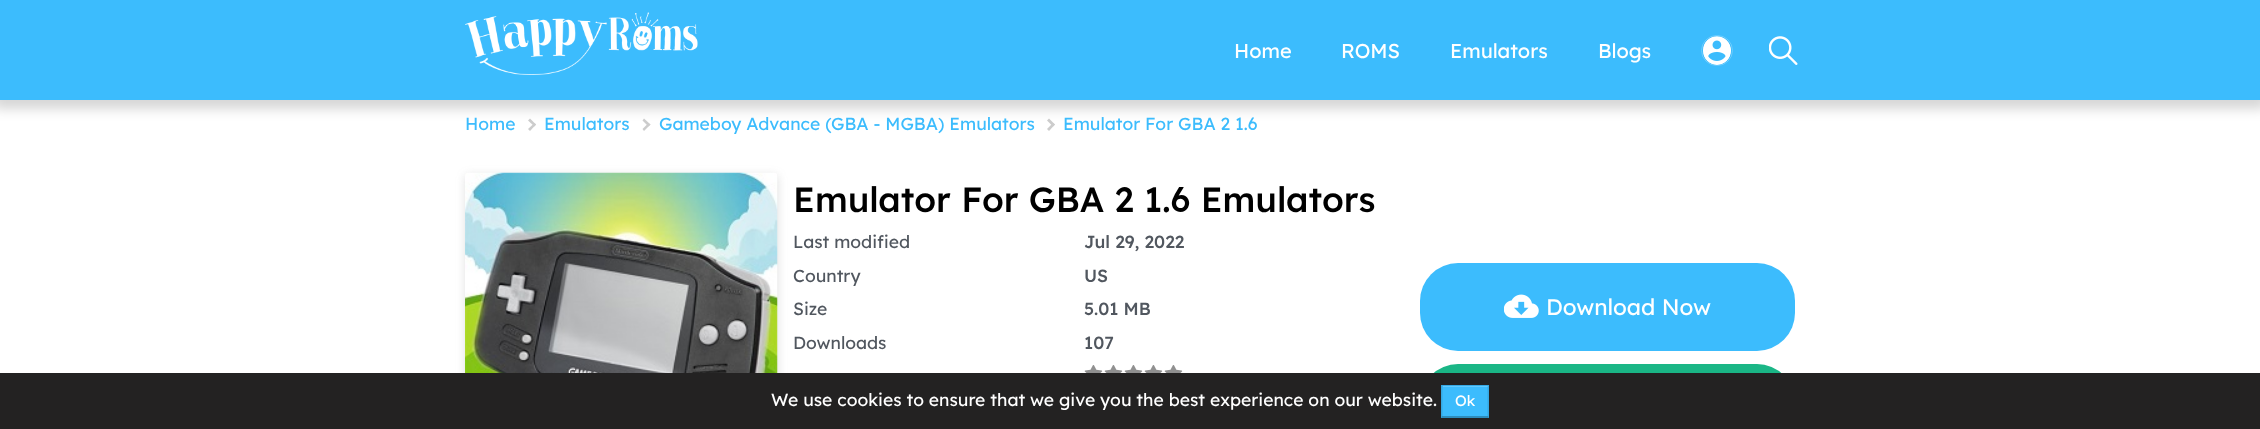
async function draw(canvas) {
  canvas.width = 2260
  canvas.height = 429
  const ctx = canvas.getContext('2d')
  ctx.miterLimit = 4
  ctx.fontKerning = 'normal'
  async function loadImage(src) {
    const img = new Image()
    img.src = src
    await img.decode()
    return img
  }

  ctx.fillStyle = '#fff'
  ctx.fillRect(0, 0, 2260, 429)
  ctx.fillStyle = '#00000029'
  ctx.filter = 'blur(6px)'
  ctx.beginPath()
  ctx.rect(-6, -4, 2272, 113)
  ctx.fill()
  ctx.filter = 'none'
  ctx.fillStyle = '#3cbcfd'
  ctx.fillRect(0, 0, 2260, 100)
  ctx.drawImage(await loadImage('image0.png'), 465, 12, 233, 63)
  ctx.drawImage(await loadImage('image1.png'), 1769, 36, 29, 29)
  ctx.font = '20px Lexend Deca'
  ctx.fillStyle = '#fff'
  ctx.fillText('Home', 1234, 58)
  ctx.fillText('ROMS', 1341, 58)
  ctx.fillText('Emulators', 1450, 58)
  ctx.fillText('Blogs', 1598, 58)
  ctx.beginPath()
  ctx.roundRect(1701.5, 35.5, 31, 30, 15)
  ctx.strokeStyle = '#6dcdfe'
  ctx.stroke()
  ctx.drawImage(await loadImage('image2.png'), 1703, 36, 28, 29)
  ctx.font = '17.5px Lexend Deca'
  ctx.fillStyle = '#3cbcfd'
  ctx.fillText('Home', 465, 130)
  ctx.fillStyle = '#ccc'
  ctx.beginPath()
  ctx.moveTo(528, 120.5)
  ctx.lineTo(530, 118.5)
  ctx.lineTo(536, 124.5)
  ctx.lineTo(534.5, 126.5)
  ctx.closePath()
  ctx.fill()
  ctx.beginPath()
  ctx.moveTo(528, 129)
  ctx.lineTo(534.5, 123)
  ctx.lineTo(536, 124.5)
  ctx.lineTo(530, 131)
  ctx.closePath()
  ctx.fill()
  ctx.fillStyle = '#3cbcfd'
  ctx.fillText('Emulators', 544, 130)
  ctx.fillStyle = '#ccc'
  ctx.beginPath()
  ctx.moveTo(642.5, 120.5)
  ctx.lineTo(644, 118.5)
  ctx.lineTo(650.5, 124.5)
  ctx.lineTo(648.5, 126.5)
  ctx.closePath()
  ctx.fill()
  ctx.beginPath()
  ctx.moveTo(642.5, 129)
  ctx.lineTo(648.5, 123)
  ctx.lineTo(650.5, 124.5)
  ctx.lineTo(644, 131)
  ctx.closePath()
  ctx.fill()
  ctx.fillStyle = '#3cbcfd'
  ctx.fillText('Gameboy Advance (GBA - MGBA) Emulators', 659, 130)
  ctx.fillStyle = '#ccc'
  ctx.beginPath()
  ctx.moveTo(1047, 120.5)
  ctx.lineTo(1049, 118.5)
  ctx.lineTo(1055, 124.5)
  ctx.lineTo(1053, 126.5)
  ctx.closePath()
  ctx.fill()
  ctx.beginPath()
  ctx.moveTo(1047, 129)
  ctx.lineTo(1053, 123)
  ctx.lineTo(1055, 124.5)
  ctx.lineTo(1049, 131)
  ctx.closePath()
  ctx.fill()
  ctx.fillStyle = '#3cbcfd'
  ctx.fillText('Emulator For GBA 2 1.6', 1063, 130)
  ctx.fillStyle = '#63636333'
  ctx.filter = 'blur(5px)'
  ctx.beginPath()
  ctx.roundRect(465, 175, 313, 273, 4)
  ctx.fill()
  ctx.filter = 'none'
  ctx.drawImage(await loadImage('image3.png'), 465, 172, 313, 201)
  ctx.font = '500 35px Lexend Deca'
  ctx.fillStyle = '#000'
  ctx.fillText('Emulator For GBA 2 1.6 Emulators', 793, 212)
  ctx.font = '17.5px Lexend Deca'
  ctx.fillStyle = '#51575f'
  ctx.fillText('Last modified', 793, 248)
  ctx.fillText('Country', 793, 282)
  ctx.fillText('Size', 793, 315)
  ctx.fillText('Downloads', 793, 349)
  ctx.font = '500 17.5px Lexend Deca'
  ctx.fillText('Jul 29, 2022', 1084, 248)
  ctx.fillText('US', 1084, 282)
  ctx.fillText('5.01 MB', 1084, 315)
  ctx.fillText('107', 1084, 349)
  ctx.drawImage(await loadImage('image4.png'), 1084, 365, 19, 8)
  ctx.drawImage(await loadImage('image4.png'), 1104, 365, 19, 8)
  ctx.drawImage(await loadImage('image4.png'), 1124, 365, 19, 8)
  ctx.drawImage(await loadImage('image4.png'), 1144, 365, 19, 8)
  ctx.drawImage(await loadImage('image4.png'), 1164, 365, 19, 8)
  ctx.fillStyle = '#3cbcfd'
  ctx.beginPath()
  ctx.roundRect(1420, 263, 375, 88, 38)
  ctx.fill()
  ctx.drawImage(await loadImage('image5.png'), 1504, 294, 35, 24)
  ctx.font = '22.5px Lexend Deca'
  ctx.fillStyle = '#fff'
  ctx.fillText('Download Now', 1546, 315)
  ctx.fillStyle = '#1ab686'
  ctx.beginPath()
  ctx.roundRect(1420, 364, 375, 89, 38)
  ctx.fill()
  ctx.fillStyle = '#232222'
  ctx.fillRect(0, 373, 2260, 56)
  ctx.font = '17.5px Lexend Deca'
  ctx.fillStyle = '#fff'
  ctx.fillText('We use cookies to ensure that we give you the best experience on our website.', 771, 406)
  ctx.fillStyle = '#3cbcfd'
  ctx.fillRect(1441, 385, 48, 33)
  ctx.fillStyle = '#63c9fd'
  ctx.fillRect(1443, 386, 45, 1)
  ctx.fillStyle = '#36a9e4'
  ctx.beginPath()
  ctx.moveTo(1441, 385)
  ctx.lineTo(1489, 385)
  ctx.lineTo(1488, 386)
  ctx.lineTo(1442, 386)
  ctx.closePath()
  ctx.fill()
  ctx.fillStyle = '#0000001a'
  ctx.beginPath()
  ctx.moveTo(1489, 385)
  ctx.lineTo(1489, 417.5)
  ctx.lineTo(1487.5, 416)
  ctx.lineTo(1487.5, 386)
  ctx.closePath()
  ctx.fill()
  ctx.fillStyle = '#00000040'
  ctx.beginPath()
  ctx.moveTo(1489, 418)
  ctx.lineTo(1441, 418)
  ctx.lineTo(1442, 416)
  ctx.lineTo(1488, 416)
  ctx.closePath()
  ctx.fill()
  ctx.fillStyle = '#0000001a'
  ctx.beginPath()
  ctx.moveTo(1441, 417.5)
  ctx.lineTo(1441, 385)
  ctx.lineTo(1442.5, 386)
  ctx.lineTo(1442.5, 416)
  ctx.closePath()
  ctx.fill()
  ctx.font = '15px Lexend Deca'
  ctx.fillStyle = '#fff'
  ctx.fillText('Ok', 1455, 406)
}

draw(document.querySelector('canvas'))
